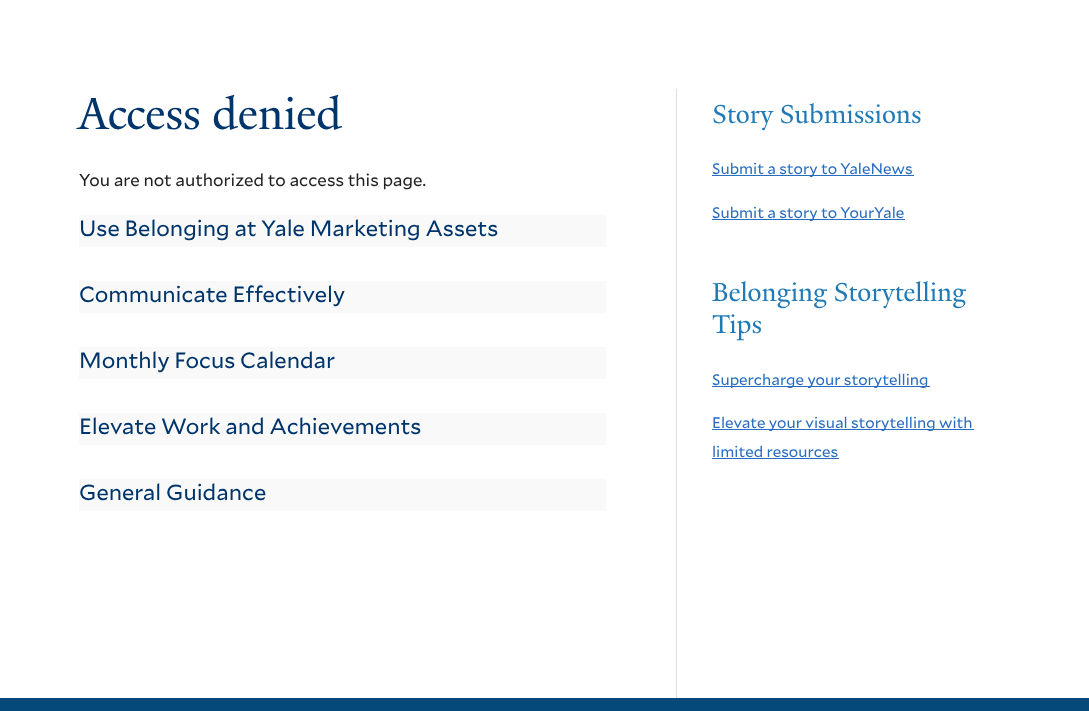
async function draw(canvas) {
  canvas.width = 1089
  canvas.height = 711
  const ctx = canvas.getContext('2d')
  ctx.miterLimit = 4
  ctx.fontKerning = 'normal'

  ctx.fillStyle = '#05497a'
  ctx.fillRect(0, 0, 1089, 711)
  ctx.fillStyle = '#fff'
  ctx.fillRect(0, 0, 1089, 698)
  ctx.font = '48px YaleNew'
  ctx.fillStyle = '#00356b'
  ctx.fillText('Access denied', 78, 129)
  ctx.font = '17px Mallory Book'
  ctx.fillStyle = '#222'
  ctx.fillText('You are not authorized to access this page.', 79, 186)
  ctx.fillStyle = '#f9f9f9'
  ctx.fillRect(79, 215, 527, 32)
  ctx.font = '22px Mallory Book'
  ctx.fillStyle = '#00356b'
  ctx.fillText('Use Belonging at Yale Marketing Assets', 79, 236)
  ctx.fillStyle = '#f9f9f9'
  ctx.fillRect(79, 281, 527, 32)
  ctx.fillStyle = '#00356b'
  ctx.fillText('Communicate Effectively', 79, 302)
  ctx.fillStyle = '#f9f9f9'
  ctx.fillRect(79, 347, 527, 32)
  ctx.fillStyle = '#00356b'
  ctx.fillText('Monthly Focus Calendar', 79, 368)
  ctx.fillStyle = '#f9f9f9'
  ctx.fillRect(79, 413, 527, 32)
  ctx.fillStyle = '#00356b'
  ctx.fillText('Elevate Work and Achievements', 79, 434)
  ctx.fillStyle = '#f9f9f9'
  ctx.fillRect(79, 479, 527, 32)
  ctx.fillStyle = '#00356b'
  ctx.fillText('General Guidance', 79, 500)
  ctx.fillStyle = '#ddd'
  ctx.fillRect(676, 89, 1, 609)
  ctx.font = '28px YaleNew'
  ctx.fillStyle = '#1f7ab7'
  ctx.fillText('Story Submissions', 712, 123)
  ctx.fillStyle = '#286dc0'
  ctx.fillRect(712, 175, 202, 1)
  ctx.font = '15.25px Mallory Book'
  ctx.fillText('Submit a story to YaleNews', 712, 174)
  ctx.fillRect(712, 219, 193, 1)
  ctx.fillText('Submit a story to YourYale', 712, 218)
  ctx.font = '28px YaleNew'
  ctx.fillStyle = '#1f7ab7'
  ctx.fillText('Belonging Storytelling', 712, 301)
  ctx.fillText('Tips', 712, 333)
  ctx.fillStyle = '#286dc0'
  ctx.fillRect(712, 386, 218, 1)
  ctx.font = '15.25px Mallory Book'
  ctx.fillText('Supercharge your storytelling', 712, 385)
  ctx.fillRect(712, 429, 262, 1)
  ctx.fillText('Elevate your visual storytelling with', 712, 428)
  ctx.fillText('limited resources', 712, 457)
  ctx.fillRect(712, 458, 127, 1)
}

draw(document.querySelector('canvas'))
